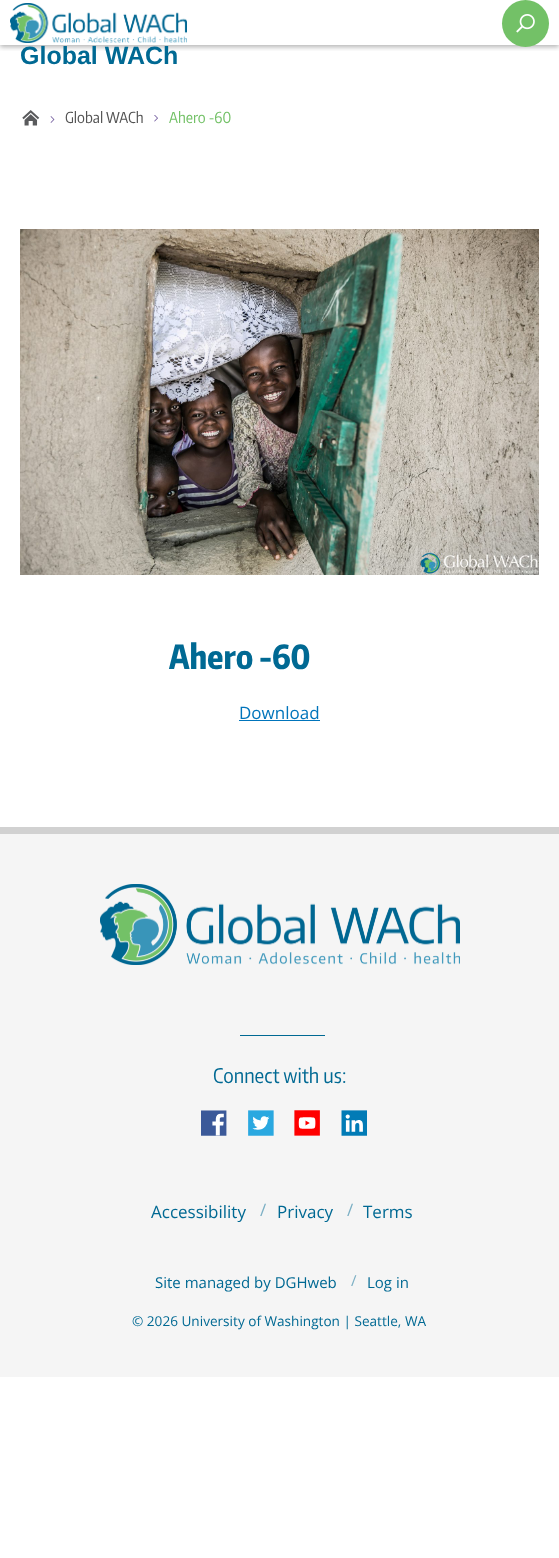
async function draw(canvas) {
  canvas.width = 559
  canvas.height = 1558
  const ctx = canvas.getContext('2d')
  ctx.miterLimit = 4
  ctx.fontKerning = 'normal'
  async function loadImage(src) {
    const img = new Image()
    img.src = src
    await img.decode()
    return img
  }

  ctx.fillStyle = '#fff'
  ctx.fillRect(0, 0, 559, 1558)
  ctx.save()
  ctx.beginPath()
  ctx.rect(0, 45, 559, 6)
  ctx.clip()
  ctx.fillStyle = '#0000004d'
  ctx.filter = 'blur(2.5px)'
  ctx.beginPath()
  ctx.rect(0, 2, 559, 45)
  ctx.fill()
  ctx.filter = 'none'
  ctx.restore()
  ctx.drawImage(await loadImage('image0.png'), 10, 3, 177, 40)
  ctx.fillStyle = '#73c167'
  ctx.beginPath()
  ctx.arc(525.5, 23.5, 23.5, 0, 2 * Math.PI)
  ctx.fill()
  ctx.drawImage(await loadImage('image1.png'), 516, 14, 19, 19)
  ctx.font = 'bold 25px Liberation Sans'
  ctx.fillStyle = '#006993'
  ctx.fillText('Global WACh', 20, 64)
  ctx.drawImage(await loadImage('image2.png'), 22, 110, 18, 16)
  ctx.drawImage(await loadImage('image3.png'), 50, 116, 5, 7)
  ctx.font = '15px Encode Sans Condensed'
  ctx.fillStyle = '#535353'
  ctx.fillText('Global WACh', 65, 123)
  ctx.drawImage(await loadImage('image4.png'), 154, 115, 4, 7)
  ctx.fillStyle = '#73c167'
  ctx.fillText('Ahero -60', 169, 123)
  ctx.drawImage(await loadImage('image5.png'), 20, 229, 519, 346)
  ctx.font = '800 33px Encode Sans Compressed'
  ctx.fillStyle = '#006993'
  ctx.fillText('Ahero -60', 169, 669)
  ctx.font = '17px Open Sans'
  ctx.fillStyle = '#0074bb'
  ctx.fillText('Download', 239, 719)
  ctx.fillRect(239, 720, 81, 1)
  ctx.fillStyle = '#f5f5f5'
  ctx.fillRect(0, 834, 559, 543)
  ctx.fillStyle = '#d1d1d1'
  ctx.fillRect(0, 827, 559, 7)
  ctx.drawImage(await loadImage('image6.png'), 100, 884, 360, 81)
  ctx.fillStyle = '#006993'
  ctx.fillRect(240, 1035, 85, 1)
  ctx.font = '20px Encode Sans Condensed'
  ctx.fillText('Connect with us:', 213, 1083)
  ctx.drawImage(await loadImage('image7.png'), 201, 1110, 26, 26)
  ctx.drawImage(await loadImage('image8.png'), 248, 1110, 26, 26)
  ctx.drawImage(await loadImage('image9.png'), 294, 1110, 26, 26)
  ctx.drawImage(await loadImage('image10.png'), 341, 1110, 26, 26)
  ctx.font = '17px Open Sans'
  ctx.fillText('Accessibility', 151, 1218)
  ctx.fillStyle = '#7bafc4'
  ctx.fillText('/', 260, 1216)
  ctx.fillStyle = '#006993'
  ctx.fillText('Privacy', 277, 1218)
  ctx.fillStyle = '#7bafc4'
  ctx.fillText('/', 347, 1216)
  ctx.fillStyle = '#006993'
  ctx.fillText('Terms', 363, 1218)
  ctx.font = '15px Open Sans'
  ctx.fillText('Site managed by DGHweb', 155, 1288)
  ctx.fillStyle = '#7bafc4'
  ctx.fillText('/', 351, 1286)
  ctx.fillStyle = '#006993'
  ctx.fillText('Log in', 367, 1288)
  ctx.font = '13.6px Open Sans'
  ctx.fillText('© 2026 University of Washington | Seattle, WA', 132, 1326)
}

draw(document.querySelector('canvas'))
